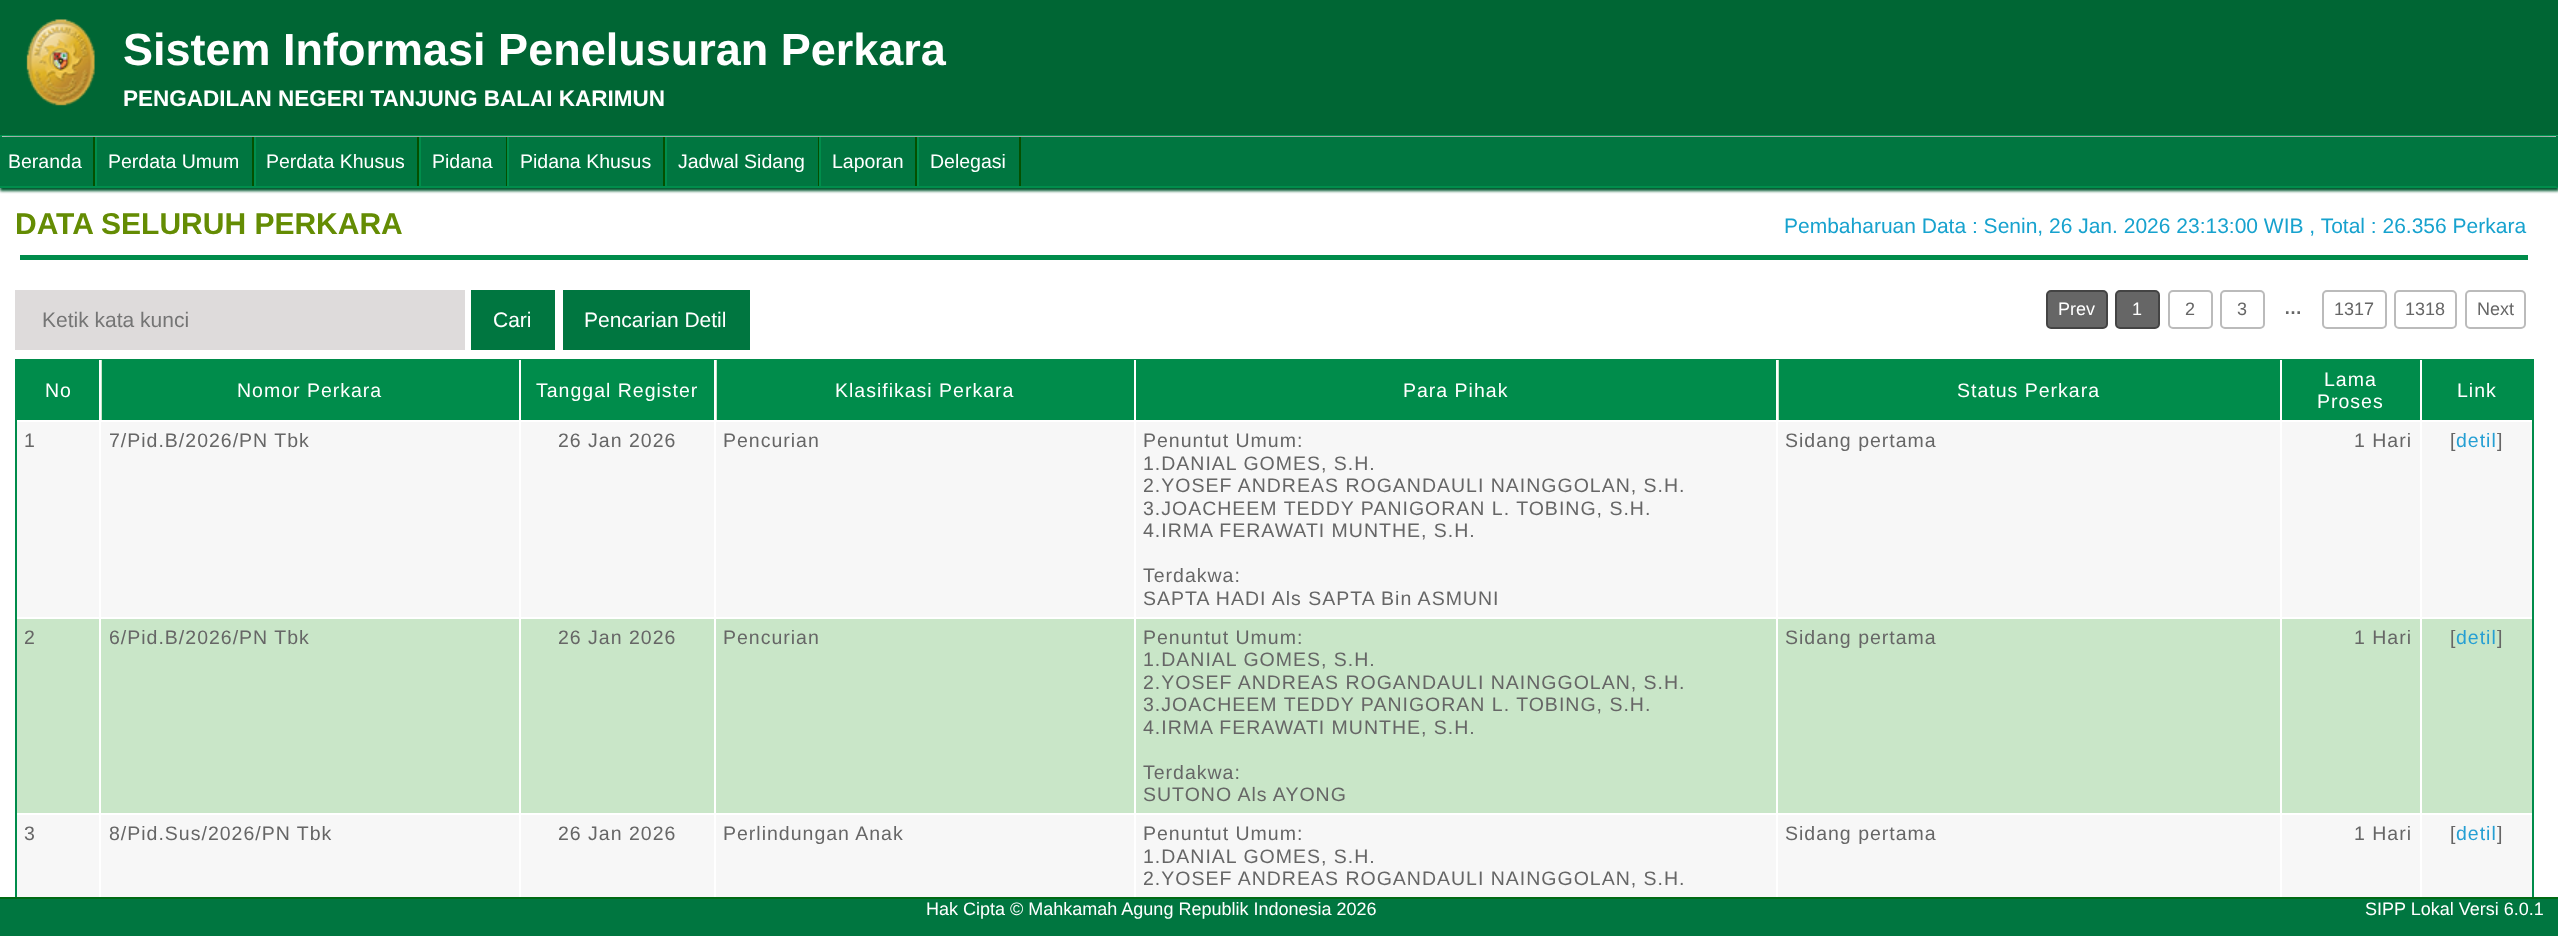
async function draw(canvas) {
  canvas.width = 2558
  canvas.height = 936
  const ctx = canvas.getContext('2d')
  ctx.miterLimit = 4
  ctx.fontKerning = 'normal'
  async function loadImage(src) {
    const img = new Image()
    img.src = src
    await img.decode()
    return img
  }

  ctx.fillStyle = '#fff'
  ctx.fillRect(0, 0, 2558, 936)
  ctx.fillStyle = '#5b5b5b'
  ctx.filter = 'blur(7.5px)'
  ctx.beginPath()
  ctx.rect(0, 0, 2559, 135)
  ctx.fill()
  ctx.filter = 'none'
  ctx.fillStyle = '#006634'
  ctx.fillRect(0, 0, 2558, 135)
  ctx.drawImage(await loadImage('image0.png'), 26, 19, 69, 87)
  ctx.font = 'bold 45px Liberation Sans'
  ctx.fillStyle = '#fff'
  ctx.fillText('Sistem Informasi Penelusuran Perkara', 123, 65)
  ctx.font = 'bold 22.5px Liberation Sans'
  ctx.fillText('PENGADILAN NEGERI TANJUNG BALAI KARIMUN', 123, 106)
  ctx.fillStyle = '#00582f'
  ctx.filter = 'blur(1.5px)'
  ctx.beginPath()
  ctx.rect(0, 138, 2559, 53)
  ctx.fill()
  ctx.filter = 'none'
  ctx.fillStyle = '#007640'
  ctx.fillRect(97, 137, 2459, 49)
  ctx.fillStyle = '#009751'
  ctx.beginPath()
  ctx.moveTo(0, 135)
  ctx.lineTo(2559, 135)
  ctx.lineTo(2556, 136)
  ctx.lineTo(2, 136)
  ctx.closePath()
  ctx.fill()
  ctx.fillStyle = '#007640'
  ctx.beginPath()
  ctx.moveTo(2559, 135)
  ctx.lineTo(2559, 188)
  ctx.lineTo(2556, 186)
  ctx.lineTo(2556, 136)
  ctx.closePath()
  ctx.fill()
  ctx.fillStyle = '#008d4c'
  ctx.beginPath()
  ctx.moveTo(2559, 188)
  ctx.lineTo(0, 188)
  ctx.lineTo(2, 186)
  ctx.lineTo(2556, 186)
  ctx.closePath()
  ctx.fill()
  ctx.fillRect(0, 135, 2, 53)
  ctx.fillStyle = '#007640'
  ctx.fillRect(0, 137, 93, 49)
  ctx.fillStyle = '#045000'
  ctx.fillRect(93, 137, 2, 49)
  ctx.font = '19.5px Liberation Sans'
  ctx.fillStyle = '#fff'
  ctx.fillText('Beranda', 8, 168)
  ctx.fillStyle = '#045000'
  ctx.fillRect(252, 137, 2, 49)
  ctx.fillStyle = '#008d4c'
  ctx.fillRect(95, 137, 2, 49)
  ctx.fillStyle = '#fff'
  ctx.fillText('Perdata Umum', 108, 168)
  ctx.fillStyle = '#045000'
  ctx.fillRect(417, 137, 2, 49)
  ctx.fillStyle = '#008d4c'
  ctx.fillRect(254, 137, 2, 49)
  ctx.fillStyle = '#fff'
  ctx.fillText('Perdata Khusus', 266, 168)
  ctx.fillStyle = '#045000'
  ctx.fillRect(506, 137, 1, 49)
  ctx.fillStyle = '#008d4c'
  ctx.fillRect(419, 137, 2, 49)
  ctx.fillStyle = '#fff'
  ctx.fillText('Pidana', 432, 168)
  ctx.fillStyle = '#045000'
  ctx.fillRect(663, 137, 2, 49)
  ctx.fillStyle = '#008d4c'
  ctx.fillRect(507, 137, 2, 49)
  ctx.fillStyle = '#fff'
  ctx.fillText('Pidana Khusus', 520, 168)
  ctx.fillStyle = '#045000'
  ctx.fillRect(818, 137, 1, 49)
  ctx.fillStyle = '#008d4c'
  ctx.fillRect(665, 137, 2, 49)
  ctx.fillStyle = '#fff'
  ctx.fillText('Jadwal Sidang', 678, 168)
  ctx.fillStyle = '#045000'
  ctx.fillRect(915, 137, 2, 49)
  ctx.fillStyle = '#008d4c'
  ctx.fillRect(819, 137, 2, 49)
  ctx.fillStyle = '#fff'
  ctx.fillText('Laporan', 832, 168)
  ctx.fillStyle = '#045000'
  ctx.fillRect(1019, 137, 2, 49)
  ctx.fillStyle = '#008d4c'
  ctx.fillRect(917, 137, 2, 49)
  ctx.fillStyle = '#fff'
  ctx.fillText('Delegasi', 930, 168)
  ctx.font = 'bold 30px Liberation Sans'
  ctx.fillStyle = '#648c03'
  ctx.fillText('DATA SELURUH PERKARA', 15, 234)
  ctx.font = '21px Liberation Sans'
  ctx.fillStyle = '#17a2ce'
  ctx.fillText('Pembaharuan Data : Senin, 26 Jan. 2026 23:13:00 WIB , Total : 26.356 Perkara', 1784, 233)
  ctx.fillStyle = '#008c4b'
  ctx.fillRect(20, 255, 2508, 5)
  ctx.fillStyle = '#666'
  ctx.beginPath()
  ctx.roundRect(2047, 291, 60, 37, 4)
  ctx.fill()
  ctx.strokeStyle = '#444'
  ctx.lineWidth = 2
  ctx.stroke()
  ctx.font = '18px Liberation Sans'
  ctx.fillStyle = '#fff'
  ctx.fillText('Prev', 2058, 315)
  ctx.fillStyle = '#666'
  ctx.beginPath()
  ctx.roundRect(2116, 291, 43, 37, 4)
  ctx.fill()
  ctx.stroke()
  ctx.fillStyle = '#fff'
  ctx.fillText('1', 2132, 315)
  ctx.beginPath()
  ctx.roundRect(2169, 291, 43, 37, 4)
  ctx.strokeStyle = '#bbb'
  ctx.stroke()
  ctx.fillStyle = '#666'
  ctx.fillText('2', 2185, 315)
  ctx.beginPath()
  ctx.roundRect(2221, 291, 43, 37, 4)
  ctx.stroke()
  ctx.fillText('3', 2237, 315)
  ctx.font = 'bold 18px Liberation Sans'
  ctx.fillText('…', 2284, 314)
  ctx.beginPath()
  ctx.roundRect(2323, 291, 63, 37, 4)
  ctx.stroke()
  ctx.font = '18px Liberation Sans'
  ctx.fillText('1317', 2334, 315)
  ctx.beginPath()
  ctx.roundRect(2395, 291, 61, 37, 4)
  ctx.stroke()
  ctx.fillText('1318', 2405, 315)
  ctx.beginPath()
  ctx.roundRect(2466, 291, 59, 37, 4)
  ctx.stroke()
  ctx.fillText('Next', 2477, 315)
  ctx.fillStyle = '#dedbdb'
  ctx.fillRect(15, 290, 450, 60)
  ctx.font = '21px Liberation Sans'
  ctx.fillStyle = '#757575'
  ctx.fillText('Ketik kata kunci', 42, 327)
  ctx.fillStyle = '#007640'
  ctx.fillRect(471, 290, 84, 60)
  ctx.fillStyle = '#fff'
  ctx.fillText('Cari', 493, 327)
  ctx.fillStyle = '#007640'
  ctx.fillRect(563, 290, 187, 60)
  ctx.fillStyle = '#fff'
  ctx.fillText('Pencarian Detil', 584, 327)
  ctx.strokeStyle = '#008c4b'
  ctx.strokeRect(16, 360, 2517, 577)
  ctx.fillStyle = '#c9e6c8'
  ctx.fillRect(101, 360, 1678, 60)
  ctx.fillStyle = '#008c4b'
  ctx.fillRect(17, 361, 82, 59)
  ctx.letterSpacing = '1px'
  ctx.font = '19.5px Liberation Sans'
  ctx.fillStyle = '#fff'
  ctx.fillText('No', 45, 397)
  ctx.fillStyle = '#008c4b'
  ctx.fillRect(102, 360, 417, 60)
  ctx.fillStyle = '#fff'
  ctx.fillRect(99, 360, 2, 1)
  ctx.fillText('Nomor Perkara', 237, 397)
  ctx.fillStyle = '#008c4b'
  ctx.fillRect(521, 360, 193, 60)
  ctx.fillStyle = '#fff'
  ctx.fillText('Tanggal Register', 536, 397)
  ctx.fillStyle = '#008c4b'
  ctx.fillRect(717, 360, 417, 60)
  ctx.fillStyle = '#fff'
  ctx.fillText('Klasifikasi Perkara', 835, 397)
  ctx.fillStyle = '#008c4b'
  ctx.fillRect(1136, 360, 640, 60)
  ctx.fillStyle = '#fff'
  ctx.fillText('Para Pihak', 1403, 397)
  ctx.fillStyle = '#008c4b'
  ctx.fillRect(1779, 361, 501, 59)
  ctx.fillStyle = '#fff'
  ctx.fillText('Status Perkara', 1957, 397)
  ctx.fillStyle = '#008c4b'
  ctx.fillRect(2282, 361, 138, 59)
  ctx.fillStyle = '#fff'
  ctx.fillRect(2280, 360, 2, 1)
  ctx.fillText('Lama', 2324, 386)
  ctx.fillText('Proses', 2317, 408)
  ctx.fillStyle = '#008c4b'
  ctx.fillRect(2422, 361, 110, 59)
  ctx.fillStyle = '#fff'
  ctx.fillRect(2420, 360, 2, 1)
  ctx.fillText('Link', 2457, 397)
  ctx.fillStyle = '#f7f7f7'
  ctx.fillRect(17, 422, 2515, 195)
  ctx.fillStyle = '#666'
  ctx.fillText('1', 24, 447)
  ctx.fillText('7/Pid.B/2026/PN Tbk', 109, 447)
  ctx.fillText('26 Jan 2026', 558, 447)
  ctx.fillText('Pencurian', 723, 447)
  ctx.fillText('Penuntut Umum:', 1143, 447)
  ctx.fillText('1.DANIAL GOMES, S.H.', 1143, 470)
  ctx.fillText('2.YOSEF ANDREAS ROGANDAULI NAINGGOLAN, S.H.', 1143, 492)
  ctx.fillText('3.JOACHEEM TEDDY PANIGORAN L. TOBING, S.H.', 1143, 515)
  ctx.fillText('4.IRMA FERAWATI MUNTHE, S.H.', 1143, 537)
  ctx.fillText('Terdakwa:', 1143, 582)
  ctx.fillText('SAPTA HADI Als SAPTA Bin ASMUNI', 1143, 605)
  ctx.fillText('Sidang pertama', 1785, 447)
  ctx.fillText('1 Hari', 2354, 447)
  ctx.fillText('[', 2450, 447)
  ctx.fillStyle = '#259fd3'
  ctx.fillText('detil', 2456, 447)
  ctx.fillStyle = '#666'
  ctx.fillText(']', 2497, 447)
  ctx.fillStyle = '#c9e6c8'
  ctx.fillRect(17, 619, 2515, 194)
  ctx.fillStyle = '#666'
  ctx.fillText('2', 24, 644)
  ctx.fillText('6/Pid.B/2026/PN Tbk', 109, 644)
  ctx.fillText('26 Jan 2026', 558, 644)
  ctx.fillText('Pencurian', 723, 644)
  ctx.fillText('Penuntut Umum:', 1143, 644)
  ctx.fillText('1.DANIAL GOMES, S.H.', 1143, 666)
  ctx.fillText('2.YOSEF ANDREAS ROGANDAULI NAINGGOLAN, S.H.', 1143, 689)
  ctx.fillText('3.JOACHEEM TEDDY PANIGORAN L. TOBING, S.H.', 1143, 711)
  ctx.fillText('4.IRMA FERAWATI MUNTHE, S.H.', 1143, 734)
  ctx.fillText('Terdakwa:', 1143, 779)
  ctx.fillText('SUTONO Als AYONG', 1143, 801)
  ctx.fillText('Sidang pertama', 1785, 644)
  ctx.fillText('1 Hari', 2354, 644)
  ctx.fillText('[', 2450, 644)
  ctx.fillStyle = '#259fd3'
  ctx.fillText('detil', 2456, 644)
  ctx.fillStyle = '#666'
  ctx.fillText(']', 2497, 644)
  ctx.fillStyle = '#f7f7f7'
  ctx.fillRect(17, 815, 2515, 82)
  ctx.fillStyle = '#fff'
  ctx.fillRect(99, 420, 2, 477)
  ctx.fillStyle = '#666'
  ctx.fillText('3', 24, 840)
  ctx.fillStyle = '#fff'
  ctx.fillRect(519, 360, 2, 537)
  ctx.fillStyle = '#666'
  ctx.fillText('8/Pid.Sus/2026/PN Tbk', 109, 840)
  ctx.fillStyle = '#fff'
  ctx.fillRect(714, 360, 2, 537)
  ctx.fillStyle = '#666'
  ctx.fillText('26 Jan 2026', 558, 840)
  ctx.fillStyle = '#fff'
  ctx.fillRect(1134, 360, 2, 537)
  ctx.fillStyle = '#666'
  ctx.fillText('Perlindungan Anak', 723, 840)
  ctx.fillStyle = '#fff'
  ctx.fillRect(1776, 360, 2, 537)
  ctx.fillStyle = '#666'
  ctx.fillText('Penuntut Umum:', 1143, 840)
  ctx.fillText('1.DANIAL GOMES, S.H.', 1143, 863)
  ctx.fillText('2.YOSEF ANDREAS ROGANDAULI NAINGGOLAN, S.H.', 1143, 885)
  ctx.fillStyle = '#fff'
  ctx.fillRect(2280, 420, 2, 477)
  ctx.fillStyle = '#666'
  ctx.fillText('Sidang pertama', 1785, 840)
  ctx.fillStyle = '#fff'
  ctx.fillRect(2420, 420, 2, 477)
  ctx.fillStyle = '#666'
  ctx.fillText('1 Hari', 2354, 840)
  ctx.fillText('[', 2450, 840)
  ctx.fillStyle = '#259fd3'
  ctx.fillText('detil', 2456, 840)
  ctx.fillStyle = '#666'
  ctx.fillText(']', 2497, 840)
  ctx.fillStyle = '#007640'
  ctx.fillRect(0, 899, 2558, 37)
  ctx.fillStyle = '#006a14'
  ctx.fillRect(0, 897, 2558, 2)
  ctx.letterSpacing = '0px'
  ctx.font = '18px Liberation Sans'
  ctx.fillStyle = '#fff'
  ctx.fillText('Hak Cipta © Mahkamah Agung Republik Indonesia 2026', 926, 915)
  ctx.fillText('SIPP Lokal Versi 6.0.1', 2365, 915)
}

draw(document.querySelector('canvas'))
